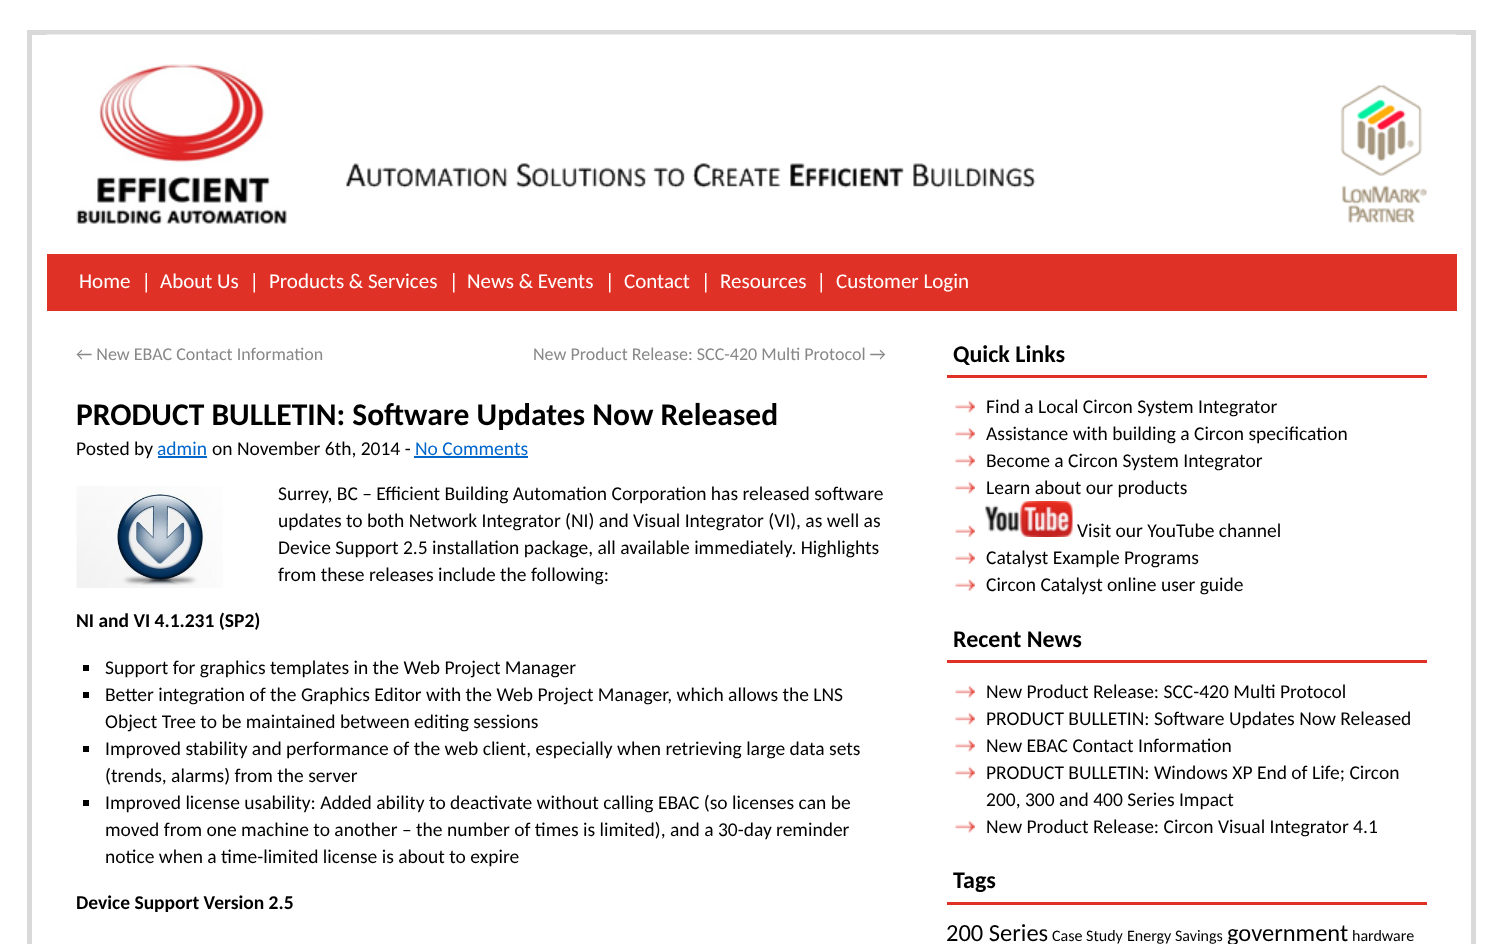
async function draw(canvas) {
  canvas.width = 1501
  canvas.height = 944
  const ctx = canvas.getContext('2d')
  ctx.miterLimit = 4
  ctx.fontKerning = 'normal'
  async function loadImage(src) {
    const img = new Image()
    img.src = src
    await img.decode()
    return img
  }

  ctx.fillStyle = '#fff'
  ctx.fillRect(0, 0, 1501, 944)
  ctx.strokeStyle = '#d9d9d9'
  ctx.lineWidth = 5
  ctx.strokeRect(29.5, 32.5, 1444, 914)
  ctx.drawImage(await loadImage('image0.png'), 46, 34, 271, 190)
  ctx.drawImage(await loadImage('image1.png'), 316, 34, 995, 154)
  ctx.drawImage(await loadImage('image2.png'), 1311, 34, 146, 189)
  ctx.fillStyle = '#e03127'
  ctx.fillRect(47, 254, 1410, 57)
  ctx.font = '21px Carlito'
  ctx.fillStyle = '#fff'
  ctx.fillText('Home', 79, 288)
  ctx.drawImage(await loadImage('image3.png'), 145, 273, 2, 20)
  ctx.fillText('About Us', 160, 288)
  ctx.drawImage(await loadImage('image3.png'), 253, 273, 2, 20)
  ctx.fillText('Products & Services', 269, 288)
  ctx.drawImage(await loadImage('image4.png'), 453, 273, 2, 20)
  ctx.fillText('News & Events', 467, 288)
  ctx.drawImage(await loadImage('image4.png'), 609, 273, 2, 20)
  ctx.fillText('Contact', 624, 288)
  ctx.drawImage(await loadImage('image4.png'), 705, 273, 2, 20)
  ctx.fillText('Resources', 720, 288)
  ctx.drawImage(await loadImage('image3.png'), 820, 273, 2, 20)
  ctx.fillText('Customer Login', 836, 288)
  ctx.font = '18px Carlito'
  ctx.fillStyle = '#888'
  ctx.fillText('← New EBAC Contact Information', 76, 360)
  ctx.fillText('New Product Release: SCC-420 Multi Protocol →', 533, 360)
  ctx.font = 'bold 31.5px Carlito'
  ctx.fillStyle = '#000'
  ctx.fillText('PRODUCT BULLETIN: Software Updates Now Released', 76, 425)
  ctx.font = '19.5px Carlito'
  ctx.fillText('Posted by', 76, 455)
  ctx.fillStyle = '#06c'
  ctx.fillText('admin', 157, 455)
  ctx.fillRect(158, 456, 49, 2)
  ctx.fillStyle = '#000'
  ctx.fillText('on November 6th, 2014 -', 212, 455)
  ctx.fillStyle = '#06c'
  ctx.fillText('No Comments', 415, 455)
  ctx.fillRect(414, 456, 114, 2)
  ctx.drawImage(await loadImage('image5.png'), 76, 486, 147, 102)
  ctx.fillStyle = '#000'
  ctx.fillText('Surrey, BC – Efficient Building Automation Corporation has released software', 278, 500)
  ctx.fillText('updates to both Network Integrator (NI) and Visual Integrator (VI), as well as', 278, 527)
  ctx.fillText('Device Support 2.5 installation package, all available immediately. Highlights', 278, 554)
  ctx.fillText('from these releases include the following:', 278, 581)
  ctx.font = 'bold 19.5px Carlito'
  ctx.fillText('NI and VI 4.1.231 (SP2)', 76, 627)
  ctx.fillRect(83, 665, 6, 6)
  ctx.font = '19.5px Carlito'
  ctx.fillText('Support for graphics templates in the Web Project Manager', 105, 674)
  ctx.fillRect(83, 692, 6, 6)
  ctx.fillText('Better integration of the Graphics Editor with the Web Project Manager, which allows the LNS', 105, 701)
  ctx.fillText('Object Tree to be maintained between editing sessions', 105, 728)
  ctx.fillRect(83, 746, 6, 6)
  ctx.fillText('Improved stability and performance of the web client, especially when retrieving large data sets', 105, 755)
  ctx.fillText('(trends, alarms) from the server', 105, 782)
  ctx.fillRect(83, 800, 6, 6)
  ctx.fillText('Improved license usability: Added ability to deactivate without calling EBAC (so licenses can be', 105, 809)
  ctx.fillText('moved from one machine to another – the number of times is limited), and a 30-day reminder', 105, 836)
  ctx.fillText('notice when a time-limited license is about to expire', 105, 863)
  ctx.font = 'bold 19.5px Carlito'
  ctx.fillText('Device Support Version 2.5', 76, 909)
  ctx.fillStyle = '#e03127'
  ctx.fillRect(947, 375, 480, 3)
  ctx.font = 'bold 24px Carlito'
  ctx.fillStyle = '#000'
  ctx.fillText('Quick Links', 953, 362)
  ctx.drawImage(await loadImage('image6.png'), 955, 400, 20, 13)
  ctx.font = '19.5px Carlito'
  ctx.fillText('Find a Local Circon System Integrator', 986, 413)
  ctx.drawImage(await loadImage('image6.png'), 955, 427, 20, 13)
  ctx.fillText('Assistance with building a Circon specification', 986, 440)
  ctx.drawImage(await loadImage('image6.png'), 955, 454, 20, 13)
  ctx.fillText('Become a Circon System Integrator', 986, 467)
  ctx.drawImage(await loadImage('image6.png'), 955, 481, 20, 13)
  ctx.fillText('Learn about our products', 986, 494)
  ctx.drawImage(await loadImage('image7.png'), 955, 525, 20, 12)
  ctx.drawImage(await loadImage('image8.png'), 985, 501, 88, 36)
  ctx.fillText('Visit our YouTube channel', 1077, 537)
  ctx.drawImage(await loadImage('image7.png'), 955, 552, 20, 12)
  ctx.fillText('Catalyst Example Programs', 986, 564)
  ctx.drawImage(await loadImage('image7.png'), 955, 579, 20, 12)
  ctx.fillText('Circon Catalyst online user guide', 986, 591)
  ctx.fillStyle = '#e03127'
  ctx.fillRect(947, 660, 480, 3)
  ctx.font = 'bold 24px Carlito'
  ctx.fillStyle = '#000'
  ctx.fillText('Recent News', 953, 647)
  ctx.drawImage(await loadImage('image6.png'), 955, 685, 20, 13)
  ctx.font = '19.5px Carlito'
  ctx.fillText('New Product Release: SCC-420 Multi Protocol', 986, 698)
  ctx.drawImage(await loadImage('image6.png'), 955, 712, 20, 13)
  ctx.fillText('PRODUCT BULLETIN: Software Updates Now Released', 986, 725)
  ctx.drawImage(await loadImage('image6.png'), 955, 739, 20, 13)
  ctx.fillText('New EBAC Contact Information', 986, 752)
  ctx.drawImage(await loadImage('image6.png'), 955, 766, 20, 13)
  ctx.fillText('PRODUCT BULLETIN: Windows XP End of Life; Circon', 986, 779)
  ctx.fillText('200, 300 and 400 Series Impact', 986, 806)
  ctx.drawImage(await loadImage('image6.png'), 955, 820, 20, 13)
  ctx.fillText('New Product Release: Circon Visual Integrator 4.1', 986, 833)
  ctx.fillStyle = '#e03127'
  ctx.fillRect(947, 902, 480, 3)
  ctx.font = 'bold 24px Carlito'
  ctx.fillStyle = '#000'
  ctx.fillText('Tags', 953, 888)
  ctx.font = '24.5px Carlito'
  ctx.fillText('200 Series', 946, 941)
  ctx.font = '16px Carlito'
  ctx.fillText('Case Study', 1052, 941)
  ctx.fillText('Energy Savings', 1127, 941)
  ctx.font = '24.5px Carlito'
  ctx.fillText('government', 1227, 941)
  ctx.font = '16px Carlito'
  ctx.fillText('hardware', 1352, 941)
}

draw(document.querySelector('canvas'))
